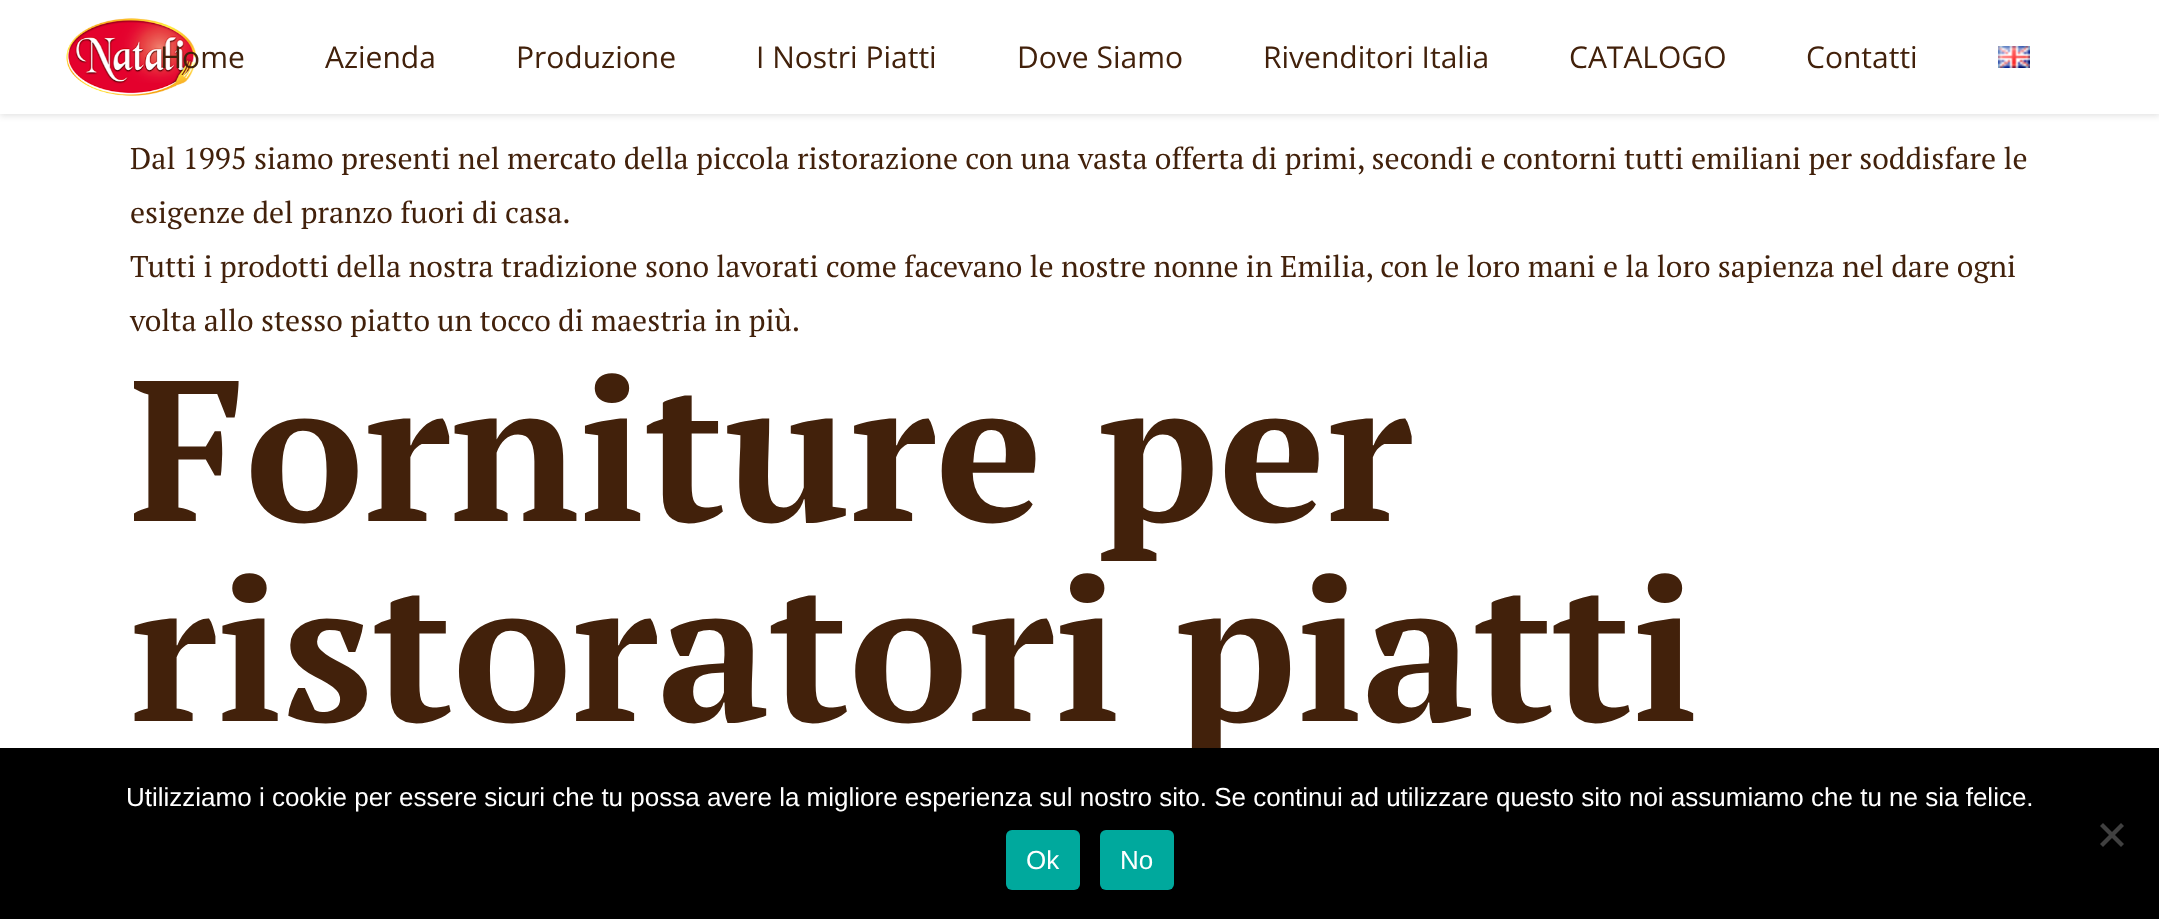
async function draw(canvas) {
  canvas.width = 2159
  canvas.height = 919
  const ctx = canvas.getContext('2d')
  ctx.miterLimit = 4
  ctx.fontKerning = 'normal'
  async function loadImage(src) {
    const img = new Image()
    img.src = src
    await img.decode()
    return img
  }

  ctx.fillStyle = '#fff'
  ctx.fillRect(0, 0, 2159, 919)
  ctx.fillStyle = '#0000001c'
  ctx.filter = 'blur(3px)'
  ctx.beginPath()
  ctx.rect(0, 2, 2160, 114)
  ctx.fill()
  ctx.filter = 'none'
  ctx.fillStyle = '#fff'
  ctx.fillRect(0, 0, 2159, 114)
  ctx.drawImage(await loadImage('image0.png'), 66, 18, 130, 78)
  ctx.font = '30px Open Sans'
  ctx.fillStyle = '#42210b'
  ctx.fillText('Home', 160, 68)
  ctx.fillText('Azienda', 325, 68)
  ctx.fillText('Produzione', 516, 68)
  ctx.fillText('I Nostri Piatti', 756, 68)
  ctx.fillText('Dove Siamo', 1017, 68)
  ctx.fillText('Rivenditori Italia', 1263, 68)
  ctx.fillText('CATALOGO', 1569, 68)
  ctx.fillText('Contatti', 1806, 68)
  ctx.drawImage(await loadImage('image1.png'), 1998, 46, 32, 22)
  ctx.font = '30px PT Serif'
  ctx.fillText('Dal 1995 siamo presenti nel mercato della piccola ristorazione con una vasta offerta di primi, secondi e contorni tutti emiliani per soddisfare le', 130, 169)
  ctx.fillText('esigenze del pranzo fuori di casa.', 130, 223)
  ctx.fillText('Tutti i prodotti della nostra tradizione sono lavorati come facevano le nostre nonne in Emilia, con le loro mani e la loro sapienza nel dare ogni', 130, 277)
  ctx.fillText('volta allo stesso piatto un tocco di maestria in più.', 130, 331)
  ctx.font = 'bold 200px PT Serif'
  ctx.fillText('Forniture per', 130, 521)
  ctx.fillText('ristoratori piatti', 130, 721)
  ctx.fillStyle = '#000'
  ctx.fillRect(0, 748, 2159, 171)
  ctx.font = '26px Liberation Sans'
  ctx.fillStyle = '#fff'
  ctx.fillText('Utilizziamo i cookie per essere sicuri che tu possa avere la migliore esperienza sul nostro sito. Se continui ad utilizzare questo sito noi assumiamo che tu ne sia felice.', 126, 806)
  ctx.fillStyle = '#404040'
  ctx.beginPath()
  ctx.moveTo(2121, 823)
  ctx.lineTo(2124, 826)
  ctx.lineTo(2103, 847)
  ctx.lineTo(2100, 844)
  ctx.closePath()
  ctx.fill()
  ctx.beginPath()
  ctx.moveTo(2100, 826)
  ctx.lineTo(2103, 823)
  ctx.lineTo(2124, 844)
  ctx.lineTo(2121, 847)
  ctx.closePath()
  ctx.fill()
  ctx.fillStyle = '#00a99d'
  ctx.beginPath()
  ctx.roundRect(1006, 830, 74, 60, 6)
  ctx.fill()
  ctx.fillStyle = '#fff'
  ctx.fillText('Ok', 1026, 869)
  ctx.fillStyle = '#00a99d'
  ctx.beginPath()
  ctx.roundRect(1100, 830, 74, 60, 6)
  ctx.fill()
  ctx.fillStyle = '#fff'
  ctx.fillText('No', 1120, 869)
}

draw(document.querySelector('canvas'))
